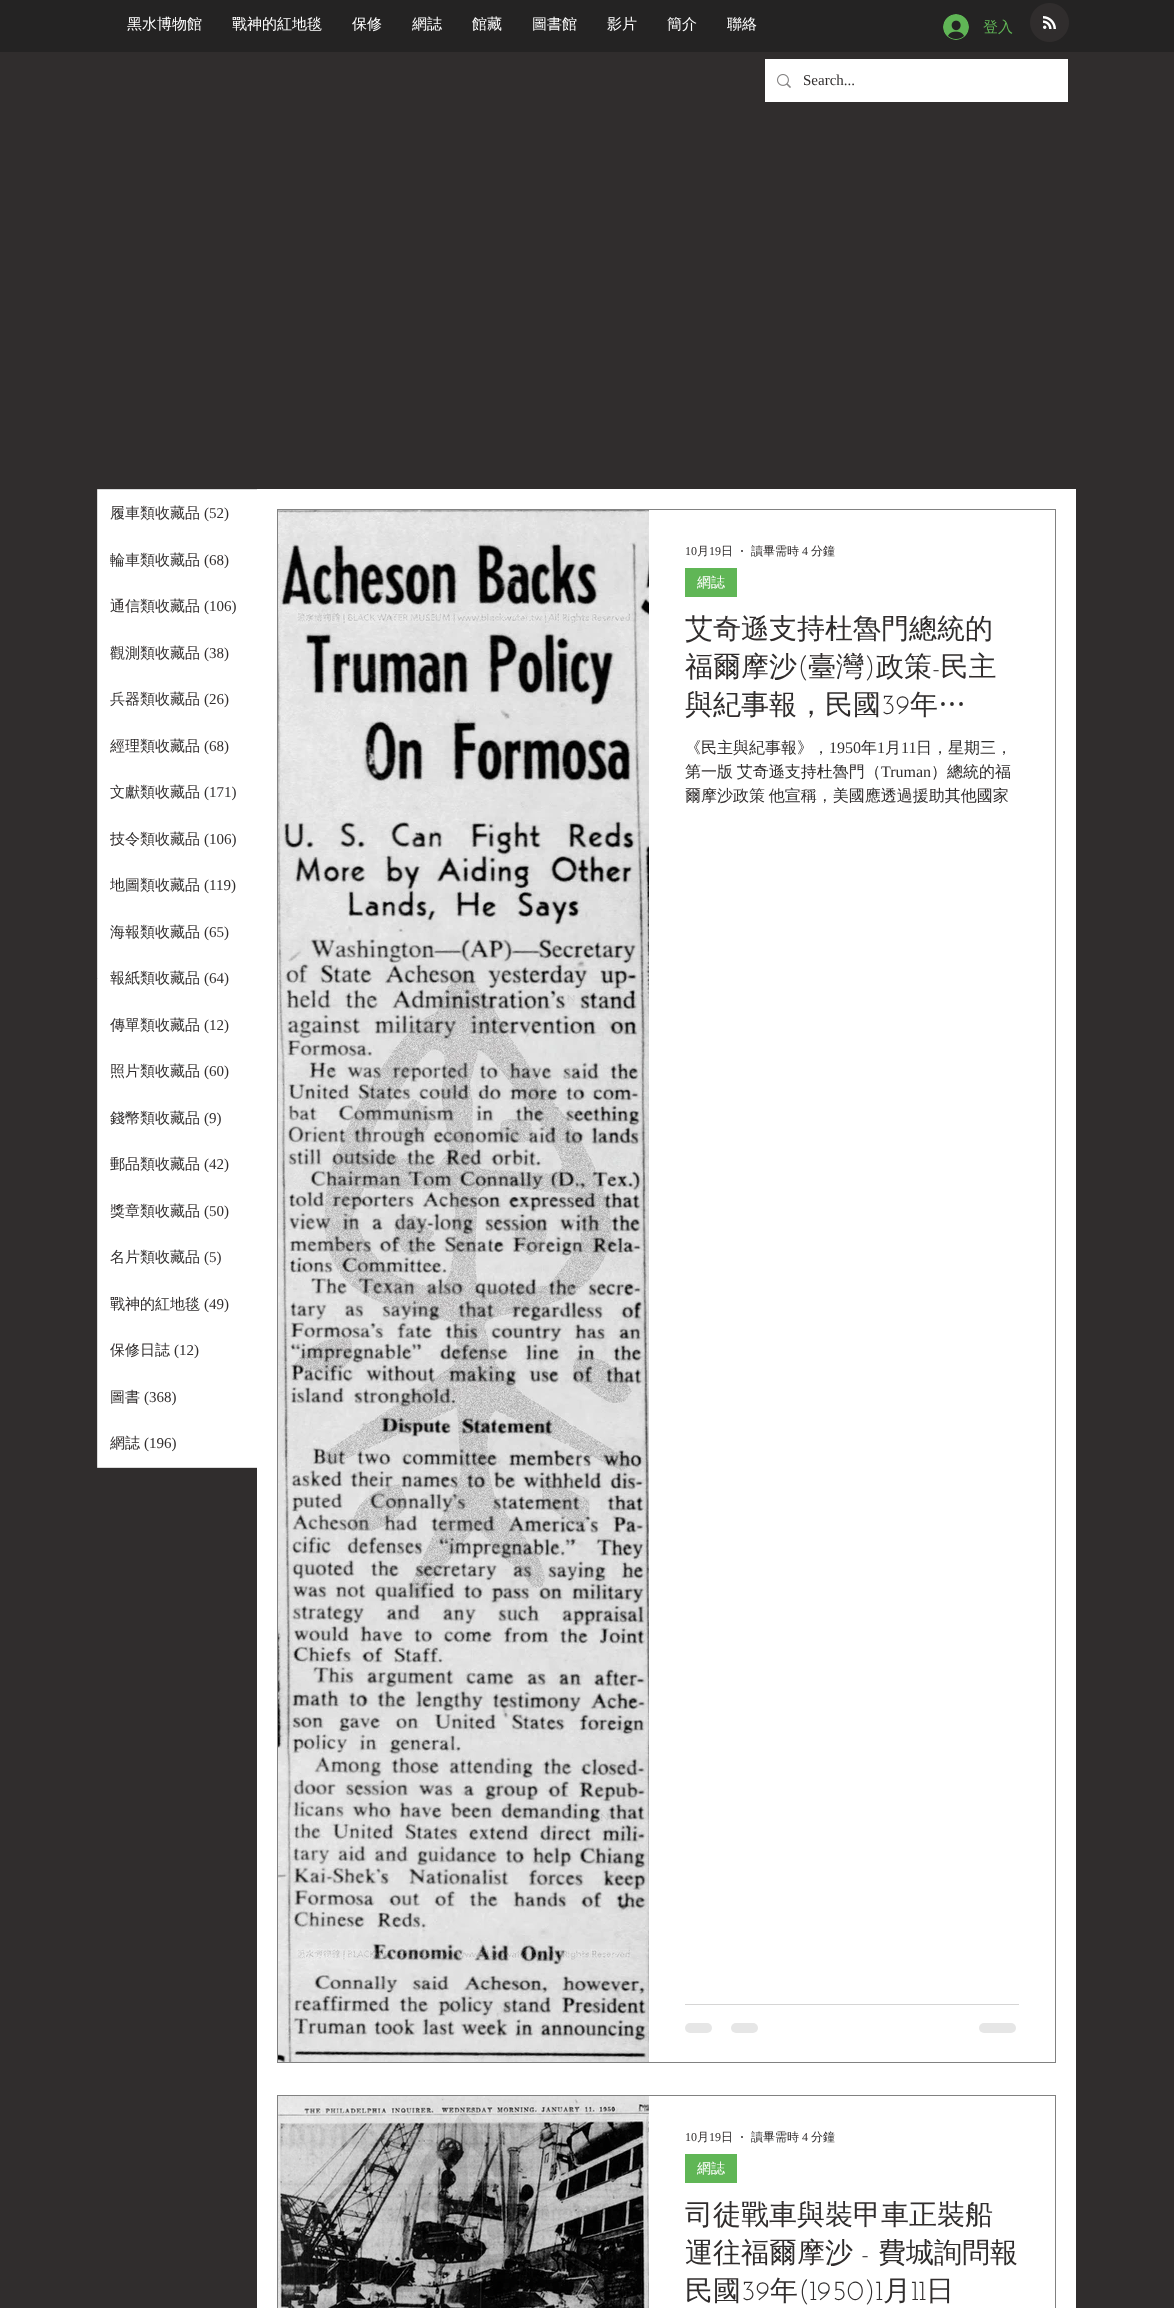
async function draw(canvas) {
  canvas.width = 1174
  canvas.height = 2308
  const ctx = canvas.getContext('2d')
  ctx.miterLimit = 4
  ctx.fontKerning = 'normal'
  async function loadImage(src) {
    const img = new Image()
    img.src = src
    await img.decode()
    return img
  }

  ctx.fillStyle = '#302d2d'
  ctx.fillRect(0, 0, 1174, 2308)
  ctx.fillStyle = '#242323'
  ctx.fillRect(0, 0, 1174, 52)
  ctx.font = '500 15px WenQuanYi Zen Hei'
  ctx.fillStyle = '#fff'
  ctx.fillText('黑水博物館', 127, 29)
  ctx.fillText('戰神的紅地毯', 232, 29)
  ctx.fillText('保修', 352, 29)
  ctx.fillText('網誌', 412, 29)
  ctx.fillText('館藏', 472, 29)
  ctx.fillText('圖書館', 532, 29)
  ctx.fillText('影片', 607, 29)
  ctx.fillText('簡介', 667, 29)
  ctx.fillText('聯絡', 727, 29)
  ctx.drawImage(await loadImage('image0.png'), 943, 14, 26, 26)
  ctx.fillStyle = '#60b656'
  ctx.fillText('登入', 983, 32)
  ctx.drawImage(await loadImage('image1.png'), 1030, 3, 39, 39)
  ctx.fillStyle = '#fff'
  ctx.fillRect(765, 59, 303, 43)
  ctx.drawImage(await loadImage('image2.png'), 777, 74, 14, 14)
  ctx.font = '15px Liberation Serif'
  ctx.fillStyle = '#302d2d'
  ctx.fillText('Search...', 803, 85)
  ctx.fillStyle = '#fff'
  ctx.beginPath()
  ctx.rect(97.5, 489.5, 160, 978)
  ctx.fill()
  ctx.strokeStyle = '#dadada'
  ctx.stroke()
  ctx.font = '500 15px WenQuanYi Zen Hei'
  ctx.fillStyle = '#302d2d'
  ctx.fillText('履車類收藏品', 110, 518)
  ctx.font = '15px Liberation Serif'
  ctx.fillText('(52)', 204, 518)
  ctx.font = '500 15px WenQuanYi Zen Hei'
  ctx.fillText('輪車類收藏品', 110, 565)
  ctx.font = '15px Liberation Serif'
  ctx.fillText('(68)', 204, 565)
  ctx.font = '500 15px WenQuanYi Zen Hei'
  ctx.fillText('通信類收藏品', 110, 611)
  ctx.font = '15px Liberation Serif'
  ctx.fillText('(106)', 204, 611)
  ctx.font = '500 15px WenQuanYi Zen Hei'
  ctx.fillText('觀測類收藏品', 110, 658)
  ctx.font = '15px Liberation Serif'
  ctx.fillText('(38)', 204, 658)
  ctx.font = '500 15px WenQuanYi Zen Hei'
  ctx.fillText('兵器類收藏品', 110, 704)
  ctx.font = '15px Liberation Serif'
  ctx.fillText('(26)', 204, 704)
  ctx.font = '500 15px WenQuanYi Zen Hei'
  ctx.fillText('經理類收藏品', 110, 751)
  ctx.font = '15px Liberation Serif'
  ctx.fillText('(68)', 204, 751)
  ctx.font = '500 15px WenQuanYi Zen Hei'
  ctx.fillText('文獻類收藏品', 110, 797)
  ctx.font = '15px Liberation Serif'
  ctx.fillText('(171)', 204, 797)
  ctx.font = '500 15px WenQuanYi Zen Hei'
  ctx.fillText('技令類收藏品', 110, 844)
  ctx.font = '15px Liberation Serif'
  ctx.fillText('(106)', 204, 844)
  ctx.font = '500 15px WenQuanYi Zen Hei'
  ctx.fillText('地圖類收藏品', 110, 890)
  ctx.font = '15px Liberation Serif'
  ctx.fillText('(119)', 204, 890)
  ctx.font = '500 15px WenQuanYi Zen Hei'
  ctx.fillText('海報類收藏品', 110, 937)
  ctx.font = '15px Liberation Serif'
  ctx.fillText('(65)', 204, 937)
  ctx.font = '500 15px WenQuanYi Zen Hei'
  ctx.fillText('報紙類收藏品', 110, 983)
  ctx.font = '15px Liberation Serif'
  ctx.fillText('(64)', 204, 983)
  ctx.font = '500 15px WenQuanYi Zen Hei'
  ctx.fillText('傳單類收藏品', 110, 1030)
  ctx.font = '15px Liberation Serif'
  ctx.fillText('(12)', 204, 1030)
  ctx.font = '500 15px WenQuanYi Zen Hei'
  ctx.fillText('照片類收藏品', 110, 1076)
  ctx.font = '15px Liberation Serif'
  ctx.fillText('(60)', 204, 1076)
  ctx.font = '500 15px WenQuanYi Zen Hei'
  ctx.fillText('錢幣類收藏品', 110, 1123)
  ctx.font = '15px Liberation Serif'
  ctx.fillText('(9)', 204, 1123)
  ctx.font = '500 15px WenQuanYi Zen Hei'
  ctx.fillText('郵品類收藏品', 110, 1169)
  ctx.font = '15px Liberation Serif'
  ctx.fillText('(42)', 204, 1169)
  ctx.font = '500 15px WenQuanYi Zen Hei'
  ctx.fillText('獎章類收藏品', 110, 1216)
  ctx.font = '15px Liberation Serif'
  ctx.fillText('(50)', 204, 1216)
  ctx.font = '500 15px WenQuanYi Zen Hei'
  ctx.fillText('名片類收藏品', 110, 1262)
  ctx.font = '15px Liberation Serif'
  ctx.fillText('(5)', 204, 1262)
  ctx.font = '500 15px WenQuanYi Zen Hei'
  ctx.fillText('戰神的紅地毯', 110, 1309)
  ctx.font = '15px Liberation Serif'
  ctx.fillText('(49)', 204, 1309)
  ctx.font = '500 15px WenQuanYi Zen Hei'
  ctx.fillText('保修日誌', 110, 1355)
  ctx.font = '15px Liberation Serif'
  ctx.fillText('(12)', 174, 1355)
  ctx.font = '500 15px WenQuanYi Zen Hei'
  ctx.fillText('圖書', 110, 1402)
  ctx.font = '15px Liberation Serif'
  ctx.fillText('(368)', 144, 1402)
  ctx.font = '500 15px WenQuanYi Zen Hei'
  ctx.fillText('網誌', 110, 1448)
  ctx.font = '15px Liberation Serif'
  ctx.fillText('(196)', 144, 1448)
  ctx.fillStyle = '#fff'
  ctx.fillRect(257, 489, 819, 1819)
  ctx.strokeStyle = '#818181'
  ctx.strokeRect(277.5, 509.5, 778, 1553)
  ctx.drawImage(await loadImage('image3.png'), 278, 510, 371, 1552)
  ctx.font = '12px Liberation Serif'
  ctx.fillStyle = '#302d2d'
  ctx.fillText('10', 685, 555)
  ctx.font = '500 12px WenQuanYi Zen Hei'
  ctx.fillText('月', 697, 555)
  ctx.font = '12px Liberation Serif'
  ctx.fillText('19', 709, 555)
  ctx.font = '500 12px WenQuanYi Zen Hei'
  ctx.fillText('日', 721, 555)
  ctx.beginPath()
  ctx.arc(742, 551, 1, 0, 2 * Math.PI)
  ctx.fill()
  ctx.fillText('讀畢需時', 751, 555)
  ctx.font = '12px Liberation Serif'
  ctx.fillText('4', 802, 555)
  ctx.font = '500 12px WenQuanYi Zen Hei'
  ctx.fillText('分鐘', 811, 555)
  ctx.fillStyle = '#60b656'
  ctx.fillRect(685, 568, 52, 29)
  ctx.font = '500 14px WenQuanYi Zen Hei'
  ctx.fillStyle = '#fff'
  ctx.fillText('網誌', 697, 587)
  ctx.font = '500 28px WenQuanYi Zen Hei'
  ctx.fillStyle = '#302d2d'
  ctx.fillText('艾奇遜支持杜魯門總統的', 685, 638)
  ctx.fillText('福爾摩沙', 685, 676)
  ctx.font = '28px Josefin Slab'
  ctx.fillText('(', 797, 676)
  ctx.font = '500 28px WenQuanYi Zen Hei'
  ctx.fillText('臺灣', 808, 676)
  ctx.font = '28px Josefin Slab'
  ctx.fillText(')', 864, 676)
  ctx.font = '500 28px WenQuanYi Zen Hei'
  ctx.fillText('政策 民主', 876, 676)
  ctx.font = '28px Josefin Slab'
  ctx.fillText('-', 932, 676)
  ctx.font = '500 28px WenQuanYi Zen Hei'
  ctx.fillText('與紀事報，民國', 685, 714)
  ctx.font = '28px Josefin Slab'
  ctx.fillText('39', 881, 714)
  ctx.font = '500 28px WenQuanYi Zen Hei'
  ctx.fillText('年…', 910, 714)
  ctx.font = '500 16px WenQuanYi Zen Hei'
  ctx.fillText('《民主與紀事報》，', 685, 753)
  ctx.font = '16px Liberation Serif'
  ctx.fillText('1950', 829, 753)
  ctx.font = '500 16px WenQuanYi Zen Hei'
  ctx.fillText('年', 861, 753)
  ctx.font = '16px Liberation Serif'
  ctx.fillText('1', 877, 753)
  ctx.font = '500 16px WenQuanYi Zen Hei'
  ctx.fillText('月', 885, 753)
  ctx.font = '16px Liberation Serif'
  ctx.fillText('11', 901, 753)
  ctx.font = '500 16px WenQuanYi Zen Hei'
  ctx.fillText('日，星期三，', 916, 753)
  ctx.wordSpacing = '-1px'
  ctx.fillText('第一版 艾奇遜支持杜魯門（', 685, 777)
  ctx.wordSpacing = '0px'
  ctx.font = '16px Liberation Serif'
  ctx.fillText('Truman', 881, 777)
  ctx.font = '500 16px WenQuanYi Zen Hei'
  ctx.fillText('）總統的福', 931, 777)
  ctx.wordSpacing = '-1px'
  ctx.fillText('爾摩沙政策 他宣稱，美國應透過援助其他國家', 685, 801)
  ctx.fillStyle = '#d6d5d5'
  ctx.fillRect(685, 2004, 334, 1)
  ctx.fillStyle = '#e6e6e6'
  ctx.beginPath()
  ctx.roundRect(685, 2023, 27, 10, 5)
  ctx.fill()
  ctx.beginPath()
  ctx.roundRect(731, 2023, 27, 10, 5)
  ctx.fill()
  ctx.beginPath()
  ctx.roundRect(979, 2023, 37, 10, 5)
  ctx.fill()
  ctx.strokeRect(277.5, 2095.5, 778, 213)
  ctx.drawImage(await loadImage('image4.png'), 278, 2096, 371, 212)
  ctx.wordSpacing = '0px'
  ctx.font = '12px Liberation Serif'
  ctx.fillStyle = '#302d2d'
  ctx.fillText('10', 685, 2141)
  ctx.font = '500 12px WenQuanYi Zen Hei'
  ctx.fillText('月', 697, 2141)
  ctx.font = '12px Liberation Serif'
  ctx.fillText('19', 709, 2141)
  ctx.font = '500 12px WenQuanYi Zen Hei'
  ctx.fillText('日', 721, 2141)
  ctx.beginPath()
  ctx.arc(742, 2137, 1, 0, 2 * Math.PI)
  ctx.fill()
  ctx.fillText('讀畢需時', 751, 2141)
  ctx.font = '12px Liberation Serif'
  ctx.fillText('4', 802, 2141)
  ctx.font = '500 12px WenQuanYi Zen Hei'
  ctx.fillText('分鐘', 811, 2141)
  ctx.fillStyle = '#60b656'
  ctx.fillRect(685, 2154, 52, 29)
  ctx.font = '500 14px WenQuanYi Zen Hei'
  ctx.fillStyle = '#fff'
  ctx.fillText('網誌', 697, 2173)
  ctx.font = '500 28px WenQuanYi Zen Hei'
  ctx.fillStyle = '#302d2d'
  ctx.fillText('司徒戰車與裝甲車正裝船', 685, 2224)
  ctx.fillText('運往福爾摩沙', 685, 2262)
  ctx.font = '28px Josefin Slab'
  ctx.fillText('-', 861, 2262)
  ctx.font = '500 28px WenQuanYi Zen Hei'
  ctx.fillText('費城詢問報', 878, 2262)
  ctx.fillText('民國', 685, 2300)
  ctx.font = '28px Josefin Slab'
  ctx.fillText('39', 741, 2300)
  ctx.font = '500 28px WenQuanYi Zen Hei'
  ctx.fillText('年', 770, 2300)
  ctx.font = '28px Josefin Slab'
  ctx.fillText('(1950)1', 798, 2300)
  ctx.font = '500 28px WenQuanYi Zen Hei'
  ctx.fillText('月', 883, 2300)
  ctx.font = '28px Josefin Slab'
  ctx.fillText('11', 911, 2300)
  ctx.font = '500 28px WenQuanYi Zen Hei'
  ctx.fillText('日', 926, 2300)
}

draw(document.querySelector('canvas'))
